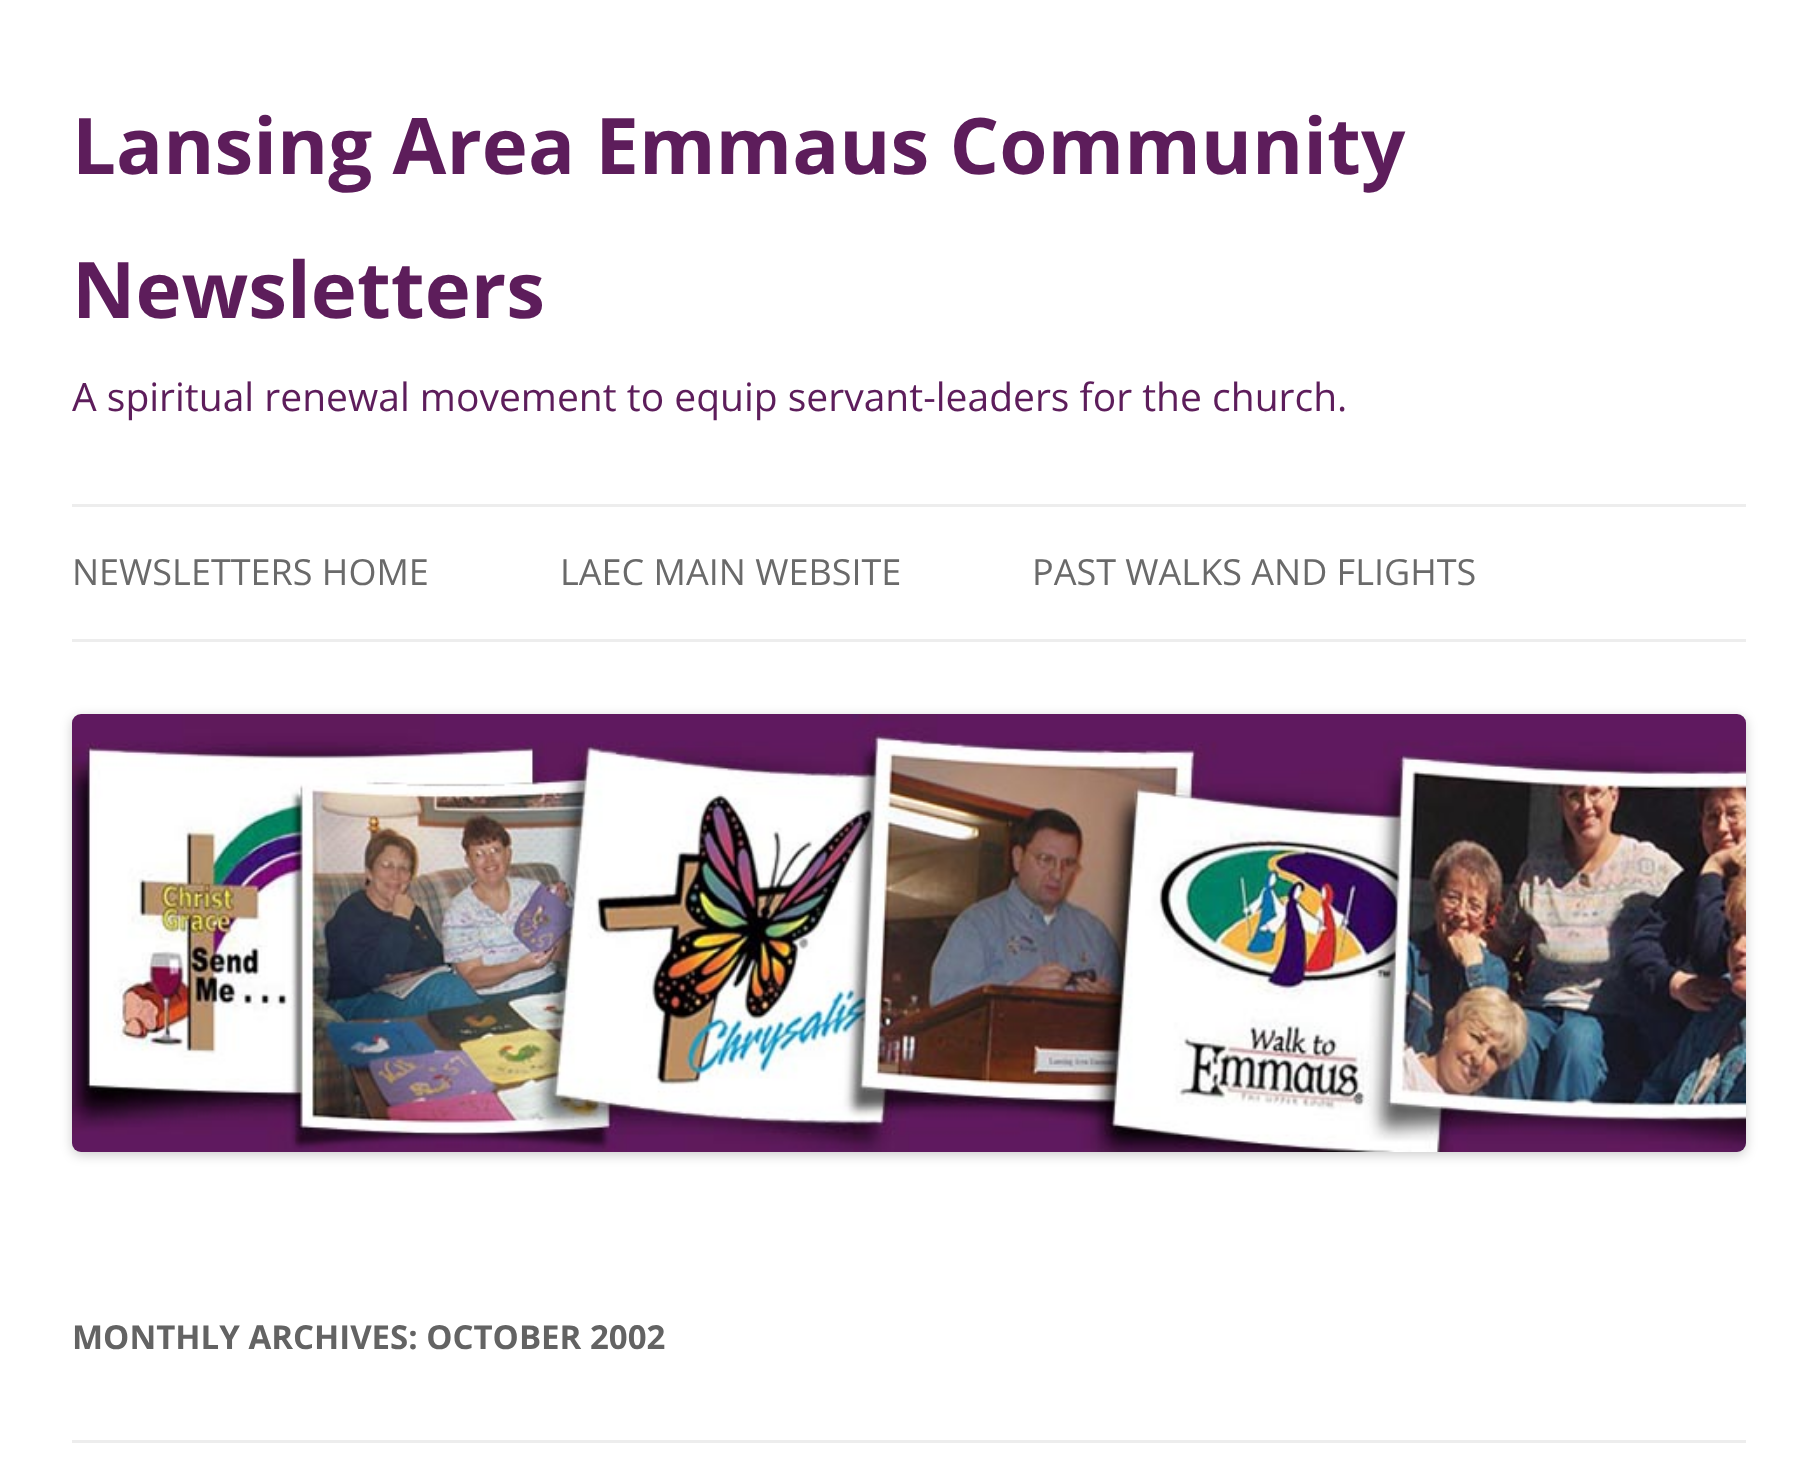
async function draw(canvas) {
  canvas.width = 1818
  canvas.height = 1479
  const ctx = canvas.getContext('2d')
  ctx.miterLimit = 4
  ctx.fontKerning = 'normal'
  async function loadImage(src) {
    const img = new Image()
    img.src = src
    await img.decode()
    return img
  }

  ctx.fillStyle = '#fff'
  ctx.fillRect(0, 0, 1818, 1479)
  ctx.font = 'bold 78px Open Sans'
  ctx.fillStyle = '#5d1d5b'
  ctx.fillText('Lansing Area Emmaus Community', 72, 174)
  ctx.fillText('Newsletters', 72, 318)
  ctx.font = '39px Open Sans'
  ctx.fillText('A spiritual renewal movement to equip servant-leaders for the church.', 72, 411)
  ctx.fillStyle = '#ededed'
  ctx.fillRect(72, 504, 1674, 3)
  ctx.fillRect(72, 639, 1674, 3)
  ctx.font = '36px Open Sans'
  ctx.fillStyle = '#6a6a6a'
  ctx.fillText('NEWSLETTERS HOME', 72, 585)
  ctx.fillText('LAEC MAIN WEBSITE', 560, 585)
  ctx.fillText('PAST WALKS AND FLIGHTS', 1032, 585)
  ctx.fillStyle = '#00000033'
  ctx.filter = 'blur(6px)'
  ctx.beginPath()
  ctx.roundRect(72, 717, 1674, 438, 9)
  ctx.fill()
  ctx.filter = 'none'
  ctx.drawImage(await loadImage('image0.png'), 72, 714, 1674, 438)
  ctx.fillStyle = '#ededed'
  ctx.fillRect(72, 1440, 1674, 3)
  ctx.font = 'bold 33px Open Sans'
  ctx.fillStyle = '#636363'
  ctx.fillText('MONTHLY ARCHIVES: OCTOBER 2002', 72, 1349)
}

draw(document.querySelector('canvas'))
